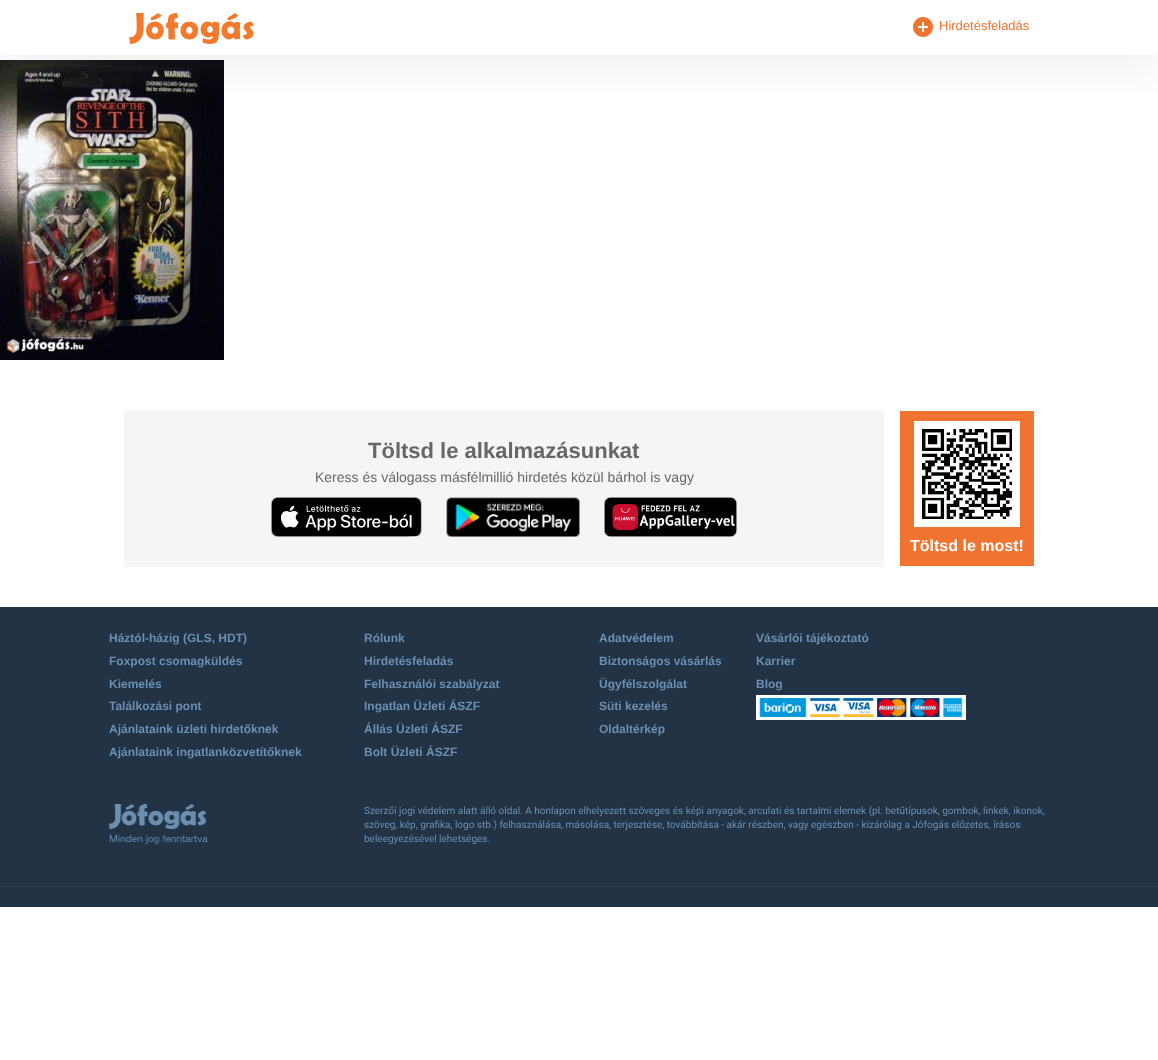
async function draw(canvas) {
  canvas.width = 1158
  canvas.height = 1060
  const ctx = canvas.getContext('2d')
  ctx.miterLimit = 4
  ctx.fontKerning = 'normal'
  async function loadImage(src) {
    const img = new Image()
    img.src = src
    await img.decode()
    return img
  }

  ctx.fillStyle = '#fff'
  ctx.fillRect(0, 0, 1158, 1060)
  ctx.drawImage(await loadImage('image2.png'), 0, 60, 224, 300)
  ctx.save()
  ctx.beginPath()
  ctx.rect(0, 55, 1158, 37)
  ctx.clip()
  ctx.fillStyle = '#7a838629'
  ctx.filter = 'blur(25px)'
  ctx.beginPath()
  ctx.rect(1, 10, 1156, 53)
  ctx.fill()
  ctx.filter = 'none'
  ctx.restore()
  ctx.drawImage(await loadImage('image0.png'), 129, 13, 125, 31)
  ctx.drawImage(await loadImage('image1.png'), 913, 17, 20, 20)
  ctx.font = '13px Liberation Sans'
  ctx.fillStyle = '#f07330'
  ctx.fillText('Hirdetésfeladás', 939, 30)
  ctx.fillStyle = '#f5f5f5'
  ctx.fillRect(124, 410, 760, 157)
  ctx.font = 'bold 22px Liberation Sans'
  ctx.fillStyle = '#676767'
  ctx.fillText('Töltsd le alkalmazásunkat', 368, 458)
  ctx.font = '14px Liberation Sans'
  ctx.fillText('Keress és válogass másfélmillió hirdetés közül bárhol is vagy', 315, 482)
  ctx.drawImage(await loadImage('image3.png'), 271, 497, 151, 40)
  ctx.drawImage(await loadImage('image4.png'), 446, 497, 134, 40)
  ctx.drawImage(await loadImage('image5.png'), 604, 497, 133, 40)
  ctx.fillStyle = '#f07330'
  ctx.fillRect(900, 411, 134, 155)
  ctx.fillStyle = '#fff'
  ctx.fillRect(914, 421, 106, 106)
  ctx.drawImage(await loadImage('image6.png'), 922, 429, 90, 90)
  ctx.font = 'bold 16px Liberation Sans'
  ctx.fillText('Töltsd le most!', 910, 551)
  ctx.fillStyle = '#213345'
  ctx.fillRect(0, 607, 1158, 300)
  ctx.font = 'bold 12px Liberation Sans'
  ctx.fillStyle = '#6c8fb1'
  ctx.fillText('Háztól-házig (GLS, HDT)', 109, 642)
  ctx.fillText('Foxpost csomagküldés', 109, 665)
  ctx.fillText('Kiemelés', 109, 688)
  ctx.fillText('Találkozási pont', 109, 710)
  ctx.fillText('Ajánlataink üzleti hirdetőknek', 109, 733)
  ctx.fillText('Ajánlataink ingatlanközvetítőknek', 109, 756)
  ctx.fillText('Rólunk', 364, 642)
  ctx.fillText('Hirdetésfeladás', 364, 665)
  ctx.fillText('Felhasználói szabályzat', 364, 688)
  ctx.fillText('Ingatlan Üzleti ÁSZF', 364, 710)
  ctx.fillText('Állás Üzleti ÁSZF', 364, 733)
  ctx.fillText('Bolt Üzleti ÁSZF', 364, 756)
  ctx.fillText('Adatvédelem', 599, 642)
  ctx.fillText('Biztonságos vásárlás', 599, 665)
  ctx.fillText('Ügyfélszolgálat', 599, 688)
  ctx.fillText('Süti kezelés', 599, 710)
  ctx.fillText('Oldaltérkép', 599, 733)
  ctx.fillText('Vásárlói tájékoztató', 756, 642)
  ctx.fillText('Karrier', 756, 665)
  ctx.fillText('Blog', 756, 688)
  ctx.drawImage(await loadImage('image7.png'), 756, 695, 210, 25)
  ctx.drawImage(await loadImage('image8.png'), 109, 804, 99, 40)
  ctx.font = '10px Roboto'
  ctx.fillText('Szerzői jogi védelem alatt álló oldal. A honlapon elhelyezett szöveges és képi anyagok, arculati és tartalmi elemek (pl. betűtípusok, gombok, linkek, ikonok,', 364, 814)
  ctx.fillText('szöveg, kép, grafika, logo stb.) felhasználása, másolása, terjesztése, továbbítása - akár részben, vagy egészben - kizárólag a Jófogás előzetes, írásos', 364, 828)
  ctx.fillText('beleegyezésével lehetséges.', 364, 842)
  ctx.fillStyle = '#2b4156'
  ctx.fillRect(0, 886, 1158, 1)
}

draw(document.querySelector('canvas'))
